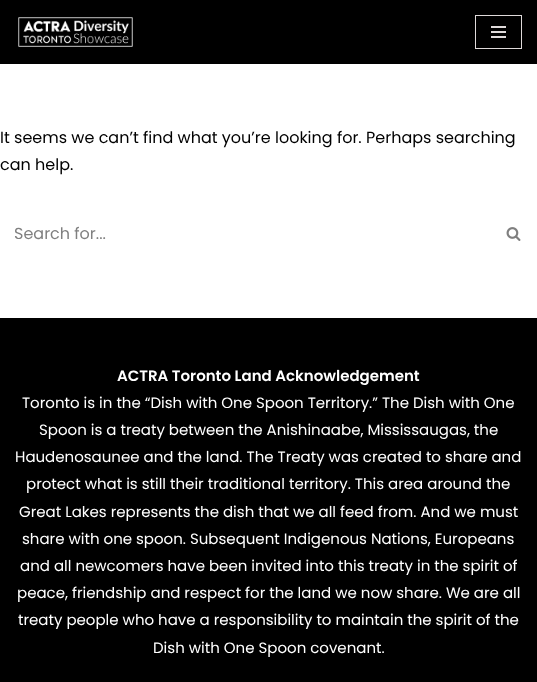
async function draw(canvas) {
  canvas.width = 537
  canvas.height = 682
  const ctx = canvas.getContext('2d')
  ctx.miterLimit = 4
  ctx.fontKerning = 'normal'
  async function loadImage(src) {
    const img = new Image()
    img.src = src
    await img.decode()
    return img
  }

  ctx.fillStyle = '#fff'
  ctx.fillRect(0, 0, 537, 682)
  ctx.fillStyle = '#000'
  ctx.fillRect(0, 0, 537, 64)
  ctx.drawImage(await loadImage('image0.png'), 18, 17, 115, 30)
  ctx.strokeStyle = '#dfdada'
  ctx.strokeRect(475.5, 15.5, 46, 33)
  ctx.fillStyle = '#dfdada'
  ctx.fillRect(491, 26, 15, 2)
  ctx.fillRect(491, 31, 15, 2)
  ctx.fillRect(491, 36, 15, 2)
  ctx.font = '16px Poppins'
  ctx.fillStyle = '#000'
  ctx.fillText('It seems we can’t find what you’re looking for. Perhaps searching', 0, 143)
  ctx.fillText('can help.', 0, 170)
  ctx.fillStyle = '#808080'
  ctx.fillText('Search for...', 14, 239)
  ctx.drawImage(await loadImage('image1.png'), 506, 227, 15, 14)
  ctx.fillStyle = '#000'
  ctx.fillRect(0, 318, 537, 364)
  ctx.font = '600 15px Poppins'
  ctx.fillStyle = '#fff'
  ctx.fillText('ACTRA Toronto Land Acknowledgement', 117, 381)
  ctx.font = '15px Poppins'
  ctx.fillText('Toronto is in the “Dish with One Spoon Territory.” The Dish with One', 22, 408)
  ctx.fillText('Spoon is a treaty between the Anishinaabe, Mississaugas, the', 39, 435)
  ctx.fillText('Haudenosaunee and the land. The Treaty was created to share and', 15, 462)
  ctx.fillText('protect what is still their traditional territory. This area around the', 26, 489)
  ctx.fillText('Great Lakes represents the dish that we all feed from. And we must', 19, 517)
  ctx.fillText('share with one spoon. Subsequent Indigenous Nations, Europeans', 22, 544)
  ctx.fillText('and all newcomers have been invited into this treaty in the spirit of', 20, 571)
  ctx.fillText('peace, friendship and respect for the land we now share. We are all', 17, 598)
  ctx.fillText('treaty people who have a responsibility to maintain the spirit of the', 18, 625)
  ctx.fillText('Dish with One Spoon covenant.', 153, 653)
}

draw(document.querySelector('canvas'))
